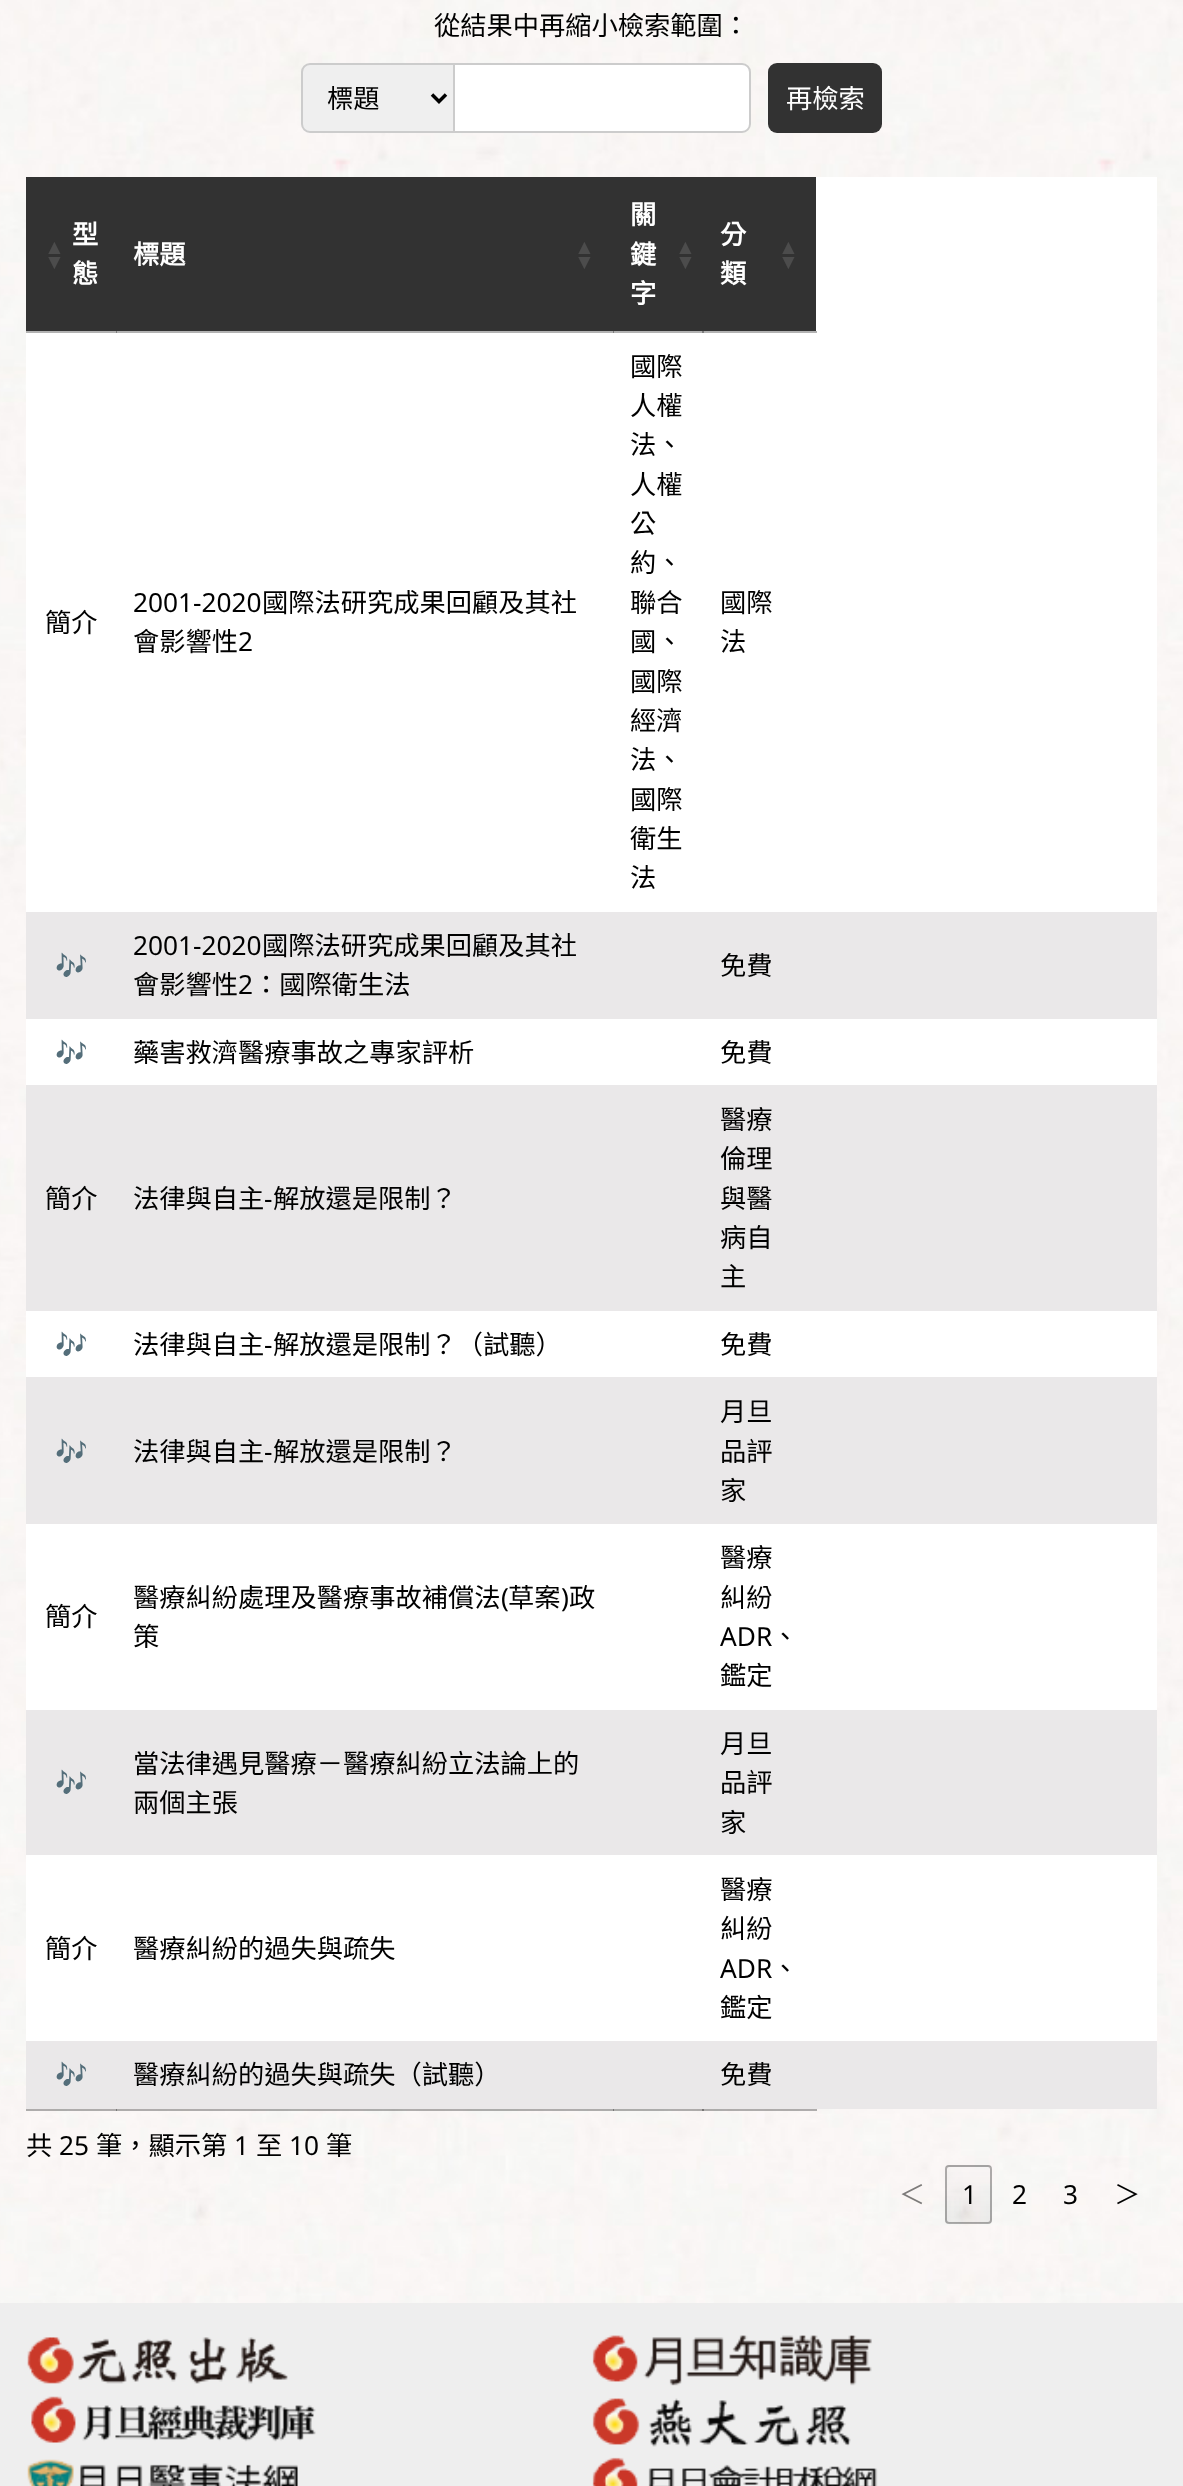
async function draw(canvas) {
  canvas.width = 1183
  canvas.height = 2486
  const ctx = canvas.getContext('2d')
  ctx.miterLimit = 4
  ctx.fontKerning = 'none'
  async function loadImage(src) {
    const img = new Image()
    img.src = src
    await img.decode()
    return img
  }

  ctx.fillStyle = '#fff'
  ctx.fillRect(0, 0, 1183, 2486)
  ctx.drawImage(await loadImage('image0.png'), 0, 0, 1183, 2303)
  ctx.font = '26.25px Noto Sans CJK TC'
  ctx.fillStyle = '#000'
  ctx.fillText('從結果中再縮小檢索範圍：', 434, 35)
  ctx.fillStyle = '#efefef'
  ctx.beginPath()
  ctx.roundRect(302, 64, 152, 68, [8, 0, 0, 8])
  ctx.fill()
  ctx.strokeStyle = '#ccc'
  ctx.lineWidth = 2
  ctx.stroke()
  ctx.beginPath()
  ctx.moveTo(432, 94.5)
  ctx.lineTo(439, 101.5)
  ctx.lineTo(446, 94.5)
  ctx.strokeStyle = '#000'
  ctx.lineWidth = 3.5
  ctx.stroke()
  ctx.fillStyle = '#000'
  ctx.fillText('標題', 327, 108)
  ctx.fillStyle = '#fff'
  ctx.beginPath()
  ctx.roundRect(454, 64, 296, 68, [0, 8, 8, 0])
  ctx.fill()
  ctx.strokeStyle = '#ccc'
  ctx.lineWidth = 2
  ctx.stroke()
  ctx.fillStyle = '#323232'
  ctx.beginPath()
  ctx.roundRect(768, 63, 114, 70, 9)
  ctx.fill()
  ctx.fillStyle = '#fff'
  ctx.fillText('再檢索', 786, 108)
  ctx.fillRect(816, 177, 341, 154)
  ctx.fillStyle = '#323232'
  ctx.fillRect(26, 177, 790, 154)
  ctx.fillStyle = '#fff'
  ctx.fillRect(26, 331, 1131, 581)
  ctx.fillStyle = '#b3b3b3'
  ctx.fillRect(702, 331, 115, 2)
  ctx.fillStyle = '#0000004d'
  ctx.fillRect(613, 331, 91, 2)
  ctx.fillRect(116, 331, 498, 2)
  ctx.fillRect(26, 331, 91, 2)
  ctx.font = 'bold 21px Liberation Sans'
  ctx.fillStyle = '#4c4c4c'
  ctx.fillText('▲', 44, 254)
  ctx.fillText('▼', 44, 269)
  ctx.font = 'bold 26.25px Noto Sans CJK TC'
  ctx.fillStyle = '#fff'
  ctx.fillText('型', 72, 244)
  ctx.fillText('態', 72, 283)
  ctx.fillText('標題', 133, 264)
  ctx.font = 'bold 21px Liberation Sans'
  ctx.fillStyle = '#4c4c4c'
  ctx.fillText('▲', 574, 254)
  ctx.fillText('▼', 574, 269)
  ctx.font = 'bold 26.25px Noto Sans CJK TC'
  ctx.fillStyle = '#fff'
  ctx.fillText('關', 630, 224)
  ctx.fillText('鍵', 630, 264)
  ctx.fillText('字', 630, 303)
  ctx.font = 'bold 21px Liberation Sans'
  ctx.fillStyle = '#4c4c4c'
  ctx.fillText('▲', 675, 254)
  ctx.fillText('▼', 675, 269)
  ctx.font = 'bold 26.25px Noto Sans CJK TC'
  ctx.fillStyle = '#fff'
  ctx.fillText('分', 720, 244)
  ctx.fillText('類', 720, 283)
  ctx.font = 'bold 21px Liberation Sans'
  ctx.fillStyle = '#4c4c4c'
  ctx.fillText('▲', 778, 254)
  ctx.fillText('▼', 778, 269)
  ctx.font = '26.25px Noto Sans CJK TC'
  ctx.fillStyle = '#000'
  ctx.fillText('簡介', 45, 632)
  ctx.font = '26.25px Noto Sans'
  ctx.fillText('2001-2020', 133, 612)
  ctx.font = '26.25px Noto Sans CJK TC'
  ctx.fillText('國際法研究成果回顧及其社', 262, 612)
  ctx.fillText('會影響性', 133, 651)
  ctx.font = '26.25px Noto Sans'
  ctx.fillText('2', 238, 651)
  ctx.font = '26.25px Noto Sans CJK TC'
  ctx.fillText('國際', 630, 376)
  ctx.fillText('人權', 630, 415)
  ctx.fillText('法、', 630, 454)
  ctx.fillText('人權', 630, 494)
  ctx.fillText('公', 630, 533)
  ctx.fillText('約、', 630, 572)
  ctx.fillText('聯合', 630, 612)
  ctx.fillText('國、', 630, 651)
  ctx.fillText('國際', 630, 691)
  ctx.fillText('經濟', 630, 730)
  ctx.fillText('法、', 630, 769)
  ctx.fillText('國際', 630, 809)
  ctx.fillText('衛生', 630, 848)
  ctx.fillText('法', 630, 887)
  ctx.fillText('國際', 720, 612)
  ctx.fillText('法', 720, 651)
  ctx.fillStyle = '#eae8e9'
  ctx.fillRect(26, 912, 1131, 107)
  ctx.font = '26.25px Noto Color Emoji'
  ctx.fillStyle = '#000'
  ctx.fillText('🎶', 55, 975)
  ctx.font = '26.25px Noto Sans'
  ctx.fillText('2001-2020', 133, 955)
  ctx.font = '26.25px Noto Sans CJK TC'
  ctx.fillText('國際法研究成果回顧及其社', 262, 955)
  ctx.fillText('會影響性', 133, 994)
  ctx.font = '26.25px Noto Sans'
  ctx.fillText('2', 238, 994)
  ctx.font = '26.25px Noto Sans CJK TC'
  ctx.fillText('：國際衛生法', 253, 994)
  ctx.fillText('免費', 720, 975)
  ctx.fillStyle = '#fff'
  ctx.fillRect(26, 1019, 1131, 66)
  ctx.font = '26.25px Noto Color Emoji'
  ctx.fillStyle = '#000'
  ctx.fillText('🎶', 55, 1062)
  ctx.font = '26.25px Noto Sans CJK TC'
  ctx.fillText('藥害救濟醫療事故之專家評析', 133, 1062)
  ctx.fillText('免費', 720, 1062)
  ctx.fillStyle = '#eae8e9'
  ctx.fillRect(26, 1085, 1131, 226)
  ctx.fillStyle = '#000'
  ctx.fillText('簡介', 45, 1208)
  ctx.fillText('法律與自主', 133, 1208)
  ctx.font = '26.25px Noto Sans'
  ctx.fillText('-', 264, 1208)
  ctx.font = '26.25px Noto Sans CJK TC'
  ctx.fillText('解放還是限制？', 273, 1208)
  ctx.fillText('醫療', 720, 1129)
  ctx.fillText('倫理', 720, 1168)
  ctx.fillText('與醫', 720, 1208)
  ctx.fillText('病自', 720, 1247)
  ctx.fillText('主', 720, 1286)
  ctx.fillStyle = '#fff'
  ctx.fillRect(26, 1311, 1131, 66)
  ctx.font = '26.25px Noto Color Emoji'
  ctx.fillStyle = '#000'
  ctx.fillText('🎶', 55, 1354)
  ctx.font = '26.25px Noto Sans CJK TC'
  ctx.fillText('法律與自主', 133, 1354)
  ctx.font = '26.25px Noto Sans'
  ctx.fillText('-', 264, 1354)
  ctx.font = '26.25px Noto Sans CJK TC'
  ctx.fillText('解放還是限制？（試聽）', 273, 1354)
  ctx.fillText('免費', 720, 1354)
  ctx.fillStyle = '#eae8e9'
  ctx.fillRect(26, 1377, 1131, 147)
  ctx.font = '26.25px Noto Color Emoji'
  ctx.fillStyle = '#000'
  ctx.fillText('🎶', 55, 1461)
  ctx.font = '26.25px Noto Sans CJK TC'
  ctx.fillText('法律與自主', 133, 1461)
  ctx.font = '26.25px Noto Sans'
  ctx.fillText('-', 264, 1461)
  ctx.font = '26.25px Noto Sans CJK TC'
  ctx.fillText('解放還是限制？', 273, 1461)
  ctx.fillText('月旦', 720, 1421)
  ctx.fillText('品評', 720, 1461)
  ctx.fillText('家', 720, 1500)
  ctx.fillStyle = '#fff'
  ctx.fillRect(26, 1524, 1131, 186)
  ctx.fillStyle = '#000'
  ctx.fillText('簡介', 45, 1626)
  ctx.fillText('醫療糾紛處理及醫療事故補償法', 133, 1607)
  ctx.font = '26.25px Noto Sans'
  ctx.fillText('(', 501, 1607)
  ctx.font = '26.25px Noto Sans CJK TC'
  ctx.fillText('草案', 508, 1607)
  ctx.font = '26.25px Noto Sans'
  ctx.fillText(')', 561, 1607)
  ctx.font = '26.25px Noto Sans CJK TC'
  ctx.fillText('政', 569, 1607)
  ctx.fillText('策', 133, 1646)
  ctx.fillText('醫療', 720, 1567)
  ctx.fillText('糾紛', 720, 1607)
  ctx.font = '26.25px Noto Sans'
  ctx.fillText('ADR', 720, 1646)
  ctx.font = '26.25px Noto Sans CJK TC'
  ctx.fillText('、', 772, 1646)
  ctx.fillText('鑑定', 720, 1685)
  ctx.fillStyle = '#eae8e9'
  ctx.fillRect(26, 1710, 1131, 145)
  ctx.font = '26.25px Noto Color Emoji'
  ctx.fillStyle = '#000'
  ctx.fillText('🎶', 55, 1792)
  ctx.font = '26.25px Noto Sans CJK TC'
  ctx.fillText('當法律遇見醫療－醫療糾紛立法論上的', 133, 1773)
  ctx.fillText('兩個主張', 133, 1812)
  ctx.fillText('月旦', 720, 1753)
  ctx.fillText('品評', 720, 1792)
  ctx.fillText('家', 720, 1832)
  ctx.fillStyle = '#fff'
  ctx.fillRect(26, 1855, 1131, 186)
  ctx.fillStyle = '#000'
  ctx.fillText('簡介', 45, 1958)
  ctx.fillText('醫療糾紛的過失與疏失', 133, 1958)
  ctx.fillText('醫療', 720, 1899)
  ctx.fillText('糾紛', 720, 1938)
  ctx.font = '26.25px Noto Sans'
  ctx.fillText('ADR', 720, 1978)
  ctx.font = '26.25px Noto Sans CJK TC'
  ctx.fillText('、', 772, 1978)
  ctx.fillText('鑑定', 720, 2017)
  ctx.fillStyle = '#eae8e9'
  ctx.fillRect(26, 2041, 1131, 68)
  ctx.fillStyle = '#0000004d'
  ctx.fillRect(702, 2109, 115, 2)
  ctx.fillRect(613, 2109, 91, 2)
  ctx.fillRect(116, 2109, 498, 2)
  ctx.fillRect(26, 2109, 91, 2)
  ctx.font = '26.25px Noto Color Emoji'
  ctx.fillStyle = '#000'
  ctx.fillText('🎶', 55, 2084)
  ctx.font = '26.25px Noto Sans CJK TC'
  ctx.fillText('醫療糾紛的過失與疏失（試聽）', 133, 2084)
  ctx.fillText('免費', 720, 2084)
  ctx.fillText('共', 26, 2155)
  ctx.font = '26.25px Noto Sans'
  ctx.fillText('25', 59, 2155)
  ctx.font = '26.25px Noto Sans CJK TC'
  ctx.fillText('筆，顯示第', 96, 2155)
  ctx.font = '26.25px Noto Sans'
  ctx.fillText('1', 234, 2155)
  ctx.font = '26.25px Noto Sans CJK TC'
  ctx.fillText('至', 256, 2155)
  ctx.font = '26.25px Noto Sans'
  ctx.fillText('10', 289, 2155)
  ctx.font = '26.25px Noto Sans CJK TC'
  ctx.fillText('筆', 326, 2155)
  ctx.fillStyle = '#7d7b7a'
  ctx.fillText('＜', 899, 2204)
  ctx.beginPath()
  ctx.roundRect(946, 2166, 45, 57, 3)
  ctx.strokeStyle = '#0000004d'
  ctx.stroke()
  ctx.font = '26.25px Noto Sans'
  ctx.fillStyle = '#000'
  ctx.fillText('1', 962, 2204)
  ctx.fillText('2', 1012, 2204)
  ctx.fillText('3', 1063, 2204)
  ctx.font = '26.25px Noto Sans CJK TC'
  ctx.fillText('＞', 1114, 2204)
  ctx.fillStyle = '#eee'
  ctx.fillRect(0, 2303, 1183, 183)
  ctx.drawImage(await loadImage('image1.png'), 27, 2337, 261, 47)
  ctx.drawImage(await loadImage('image2.png'), 592, 2335, 280, 51)
  ctx.drawImage(await loadImage('image3.png'), 31, 2396, 285, 47)
  ctx.drawImage(await loadImage('image4.png'), 592, 2398, 259, 49)
  ctx.drawImage(await loadImage('image5.png'), 27, 2459, 271, 27)
  ctx.drawImage(await loadImage('image6.png'), 592, 2457, 286, 29)
}

draw(document.querySelector('canvas'))
